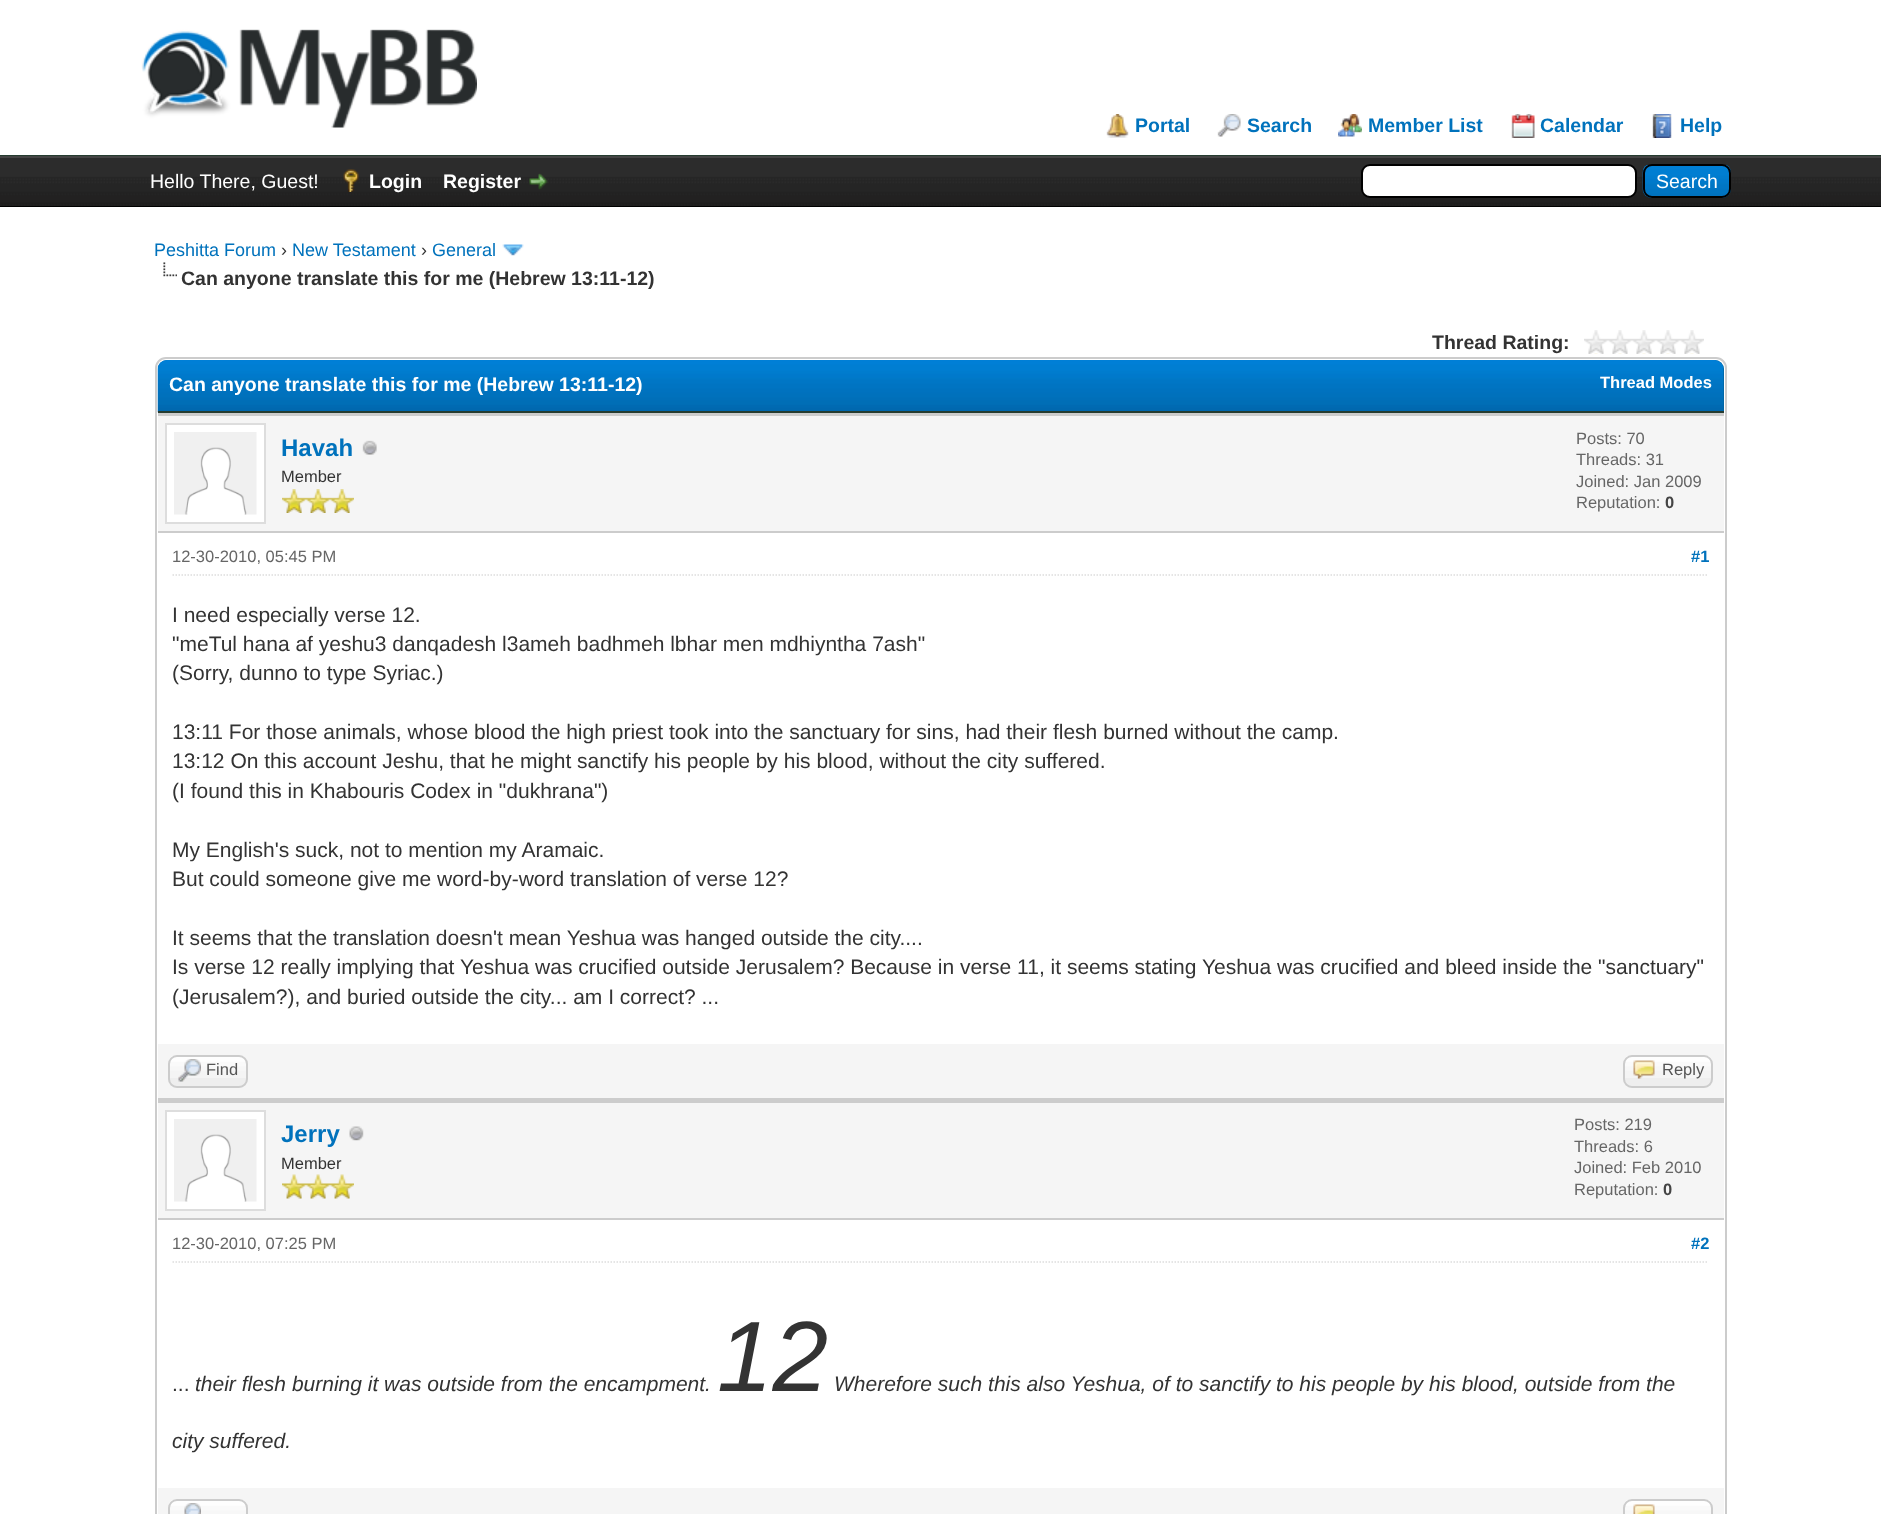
async function draw(canvas) {
  canvas.width = 1881
  canvas.height = 1514
  const ctx = canvas.getContext('2d')
  ctx.miterLimit = 4
  ctx.fontKerning = 'normal'
  async function loadImage(src) {
    const img = new Image()
    img.src = src
    await img.decode()
    return img
  }

  ctx.fillStyle = '#fff'
  ctx.fillRect(0, 0, 1881, 1514)
  ctx.fillStyle = '#263c30'
  ctx.fillRect(0, 155, 1881, 1)
  ctx.drawImage(await loadImage('image0.png'), 141, 29, 336, 99)
  ctx.drawImage(await loadImage('image1.png'), 1106, 114, 23, 24)
  ctx.font = 'bold 19.5px Liberation Sans'
  ctx.fillStyle = '#0072bc'
  ctx.fillText('Portal', 1135, 132)
  ctx.drawImage(await loadImage('image2.png'), 1217, 114, 24, 23)
  ctx.fillText('Search', 1247, 132)
  ctx.drawImage(await loadImage('image3.png'), 1338, 114, 24, 23)
  ctx.fillText('Member List', 1368, 132)
  ctx.drawImage(await loadImage('image4.png'), 1511, 114, 24, 24)
  ctx.fillText('Calendar', 1540, 132)
  ctx.drawImage(await loadImage('image5.png'), 1652, 114, 20, 24)
  ctx.fillText('Help', 1680, 132)
  ctx.drawImage(await loadImage('image6.png'), 0, 158, 1881, 48)
  ctx.fillStyle = '#444'
  ctx.fillRect(0, 156, 1881, 2)
  ctx.fillStyle = '#000'
  ctx.fillRect(0, 206, 1881, 1)
  ctx.font = '19.5px Liberation Sans'
  ctx.fillStyle = '#fff'
  ctx.fillText('Hello There, Guest!', 150, 188)
  ctx.drawImage(await loadImage('image7.png'), 343, 169, 16, 23)
  ctx.font = 'bold 19.5px Liberation Sans'
  ctx.fillText('Login', 369, 188)
  ctx.fillText('Register', 443, 188)
  ctx.drawImage(await loadImage('image8.png'), 529, 173, 19, 17)
  ctx.beginPath()
  ctx.roundRect(1362, 165, 274, 32, 8)
  ctx.fill()
  ctx.strokeStyle = '#000'
  ctx.lineWidth = 2
  ctx.stroke()
  ctx.drawImage(await loadImage('image9.png'), 1642, 165, 89, 33)
  ctx.beginPath()
  ctx.roundRect(1644, 165, 86, 32, 8)
  ctx.stroke()
  ctx.font = '19.5px Liberation Sans'
  ctx.fillText('Search', 1656, 188)
  ctx.font = '18px Liberation Sans'
  ctx.fillStyle = '#0072bc'
  ctx.fillText('Peshitta Forum', 154, 256)
  ctx.fillStyle = '#333'
  ctx.fillText('›', 281, 256)
  ctx.fillStyle = '#0072bc'
  ctx.fillText('New Testament', 292, 256)
  ctx.fillStyle = '#333'
  ctx.fillText('›', 421, 256)
  ctx.fillStyle = '#0072bc'
  ctx.fillText('General', 432, 256)
  ctx.drawImage(await loadImage('image10.png'), 502, 244, 22, 12)
  ctx.drawImage(await loadImage('image11.png'), 163, 262, 14, 15)
  ctx.font = 'bold 19.5px Liberation Sans'
  ctx.fillStyle = '#333'
  ctx.fillText('Can anyone translate this for me (Hebrew 13:11-12)', 181, 285)
  ctx.fillText('Thread Rating:', 1432, 349)
  ctx.drawImage(await loadImage('image12.png'), 1584, 330, 120, 24)
  ctx.beginPath()
  ctx.roundRect(156, 358, 1570, 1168, 10)
  ctx.strokeStyle = '#ccc'
  ctx.stroke()
  ctx.fillStyle = '#0066a2'
  ctx.beginPath()
  ctx.roundRect(158, 360, 1566, 53, [9, 9, 0, 0])
  ctx.fill()
  ctx.drawImage(await loadImage('image13.png'), 157, 360, 1567, 53)
  ctx.fillStyle = '#263c30'
  ctx.fillRect(158, 411, 1566, 2)
  ctx.fillStyle = '#fff'
  ctx.fillText('Can anyone translate this for me (Hebrew 13:11-12)', 169, 391)
  ctx.font = 'bold 16.5px Liberation Sans'
  ctx.fillText('Thread Modes', 1600, 388)
  ctx.fillStyle = '#f5f5f5'
  ctx.fillRect(158, 416, 1566, 115)
  ctx.fillStyle = '#ccc'
  ctx.fillRect(158, 413, 1566, 3)
  ctx.fillRect(158, 531, 1566, 2)
  ctx.fillStyle = '#fff'
  ctx.beginPath()
  ctx.rect(166, 424, 99, 99)
  ctx.fill()
  ctx.strokeStyle = '#ddd'
  ctx.stroke()
  ctx.drawImage(await loadImage('image14.png'), 174, 432, 83, 83)
  ctx.font = 'bold 24px Liberation Sans'
  ctx.fillStyle = '#0072bc'
  ctx.fillText('Havah', 281, 456)
  ctx.drawImage(await loadImage('image15.png'), 362, 440, 15, 15)
  ctx.font = '16.5px Liberation Sans'
  ctx.fillStyle = '#333'
  ctx.fillText('Member', 281, 482)
  ctx.drawImage(await loadImage('image16.png'), 282, 489, 24, 24)
  ctx.drawImage(await loadImage('image16.png'), 306, 489, 24, 24)
  ctx.drawImage(await loadImage('image16.png'), 330, 489, 24, 24)
  ctx.fillStyle = '#666'
  ctx.fillText('Posts: 70', 1576, 444)
  ctx.fillText('Threads: 31', 1576, 465)
  ctx.fillText('Joined: Jan 2009', 1576, 487)
  ctx.fillText('Reputation:', 1576, 508)
  ctx.font = 'bold 16.5px Liberation Sans'
  ctx.fillStyle = '#444'
  ctx.fillText('0', 1665, 508)
  ctx.beginPath()
  ctx.moveTo(172.5, 575)
  ctx.lineTo(1708.5, 575)
  ctx.lineWidth = 1.5
  ctx.setLineDash([1.5, 1.5])
  ctx.stroke()
  ctx.font = '16.5px Liberation Sans'
  ctx.fillStyle = '#666'
  ctx.fillText('12-30-2010, 05:45 PM', 172, 562)
  ctx.font = 'bold 16.5px Liberation Sans'
  ctx.fillStyle = '#0072bc'
  ctx.fillText('#1', 1691, 562)
  ctx.font = '21px Liberation Sans'
  ctx.fillStyle = '#333'
  ctx.fillText('I need especially verse 12.', 172, 622)
  ctx.fillText('"meTul hana af yeshu3 danqadesh l3ameh badhmeh lbhar men mdhiyntha 7ash"', 172, 651)
  ctx.fillText('(Sorry, dunno to type Syriac.)', 172, 680)
  ctx.fillText('13:11 For those animals, whose blood the high priest took into the sanctuary for sins, had their flesh burned without the camp.', 172, 739)
  ctx.fillText('13:12 On this account Jeshu, that he might sanctify his people by his blood, without the city suffered.', 172, 768)
  ctx.fillText('(I found this in Khabouris Codex in "dukhrana")', 172, 798)
  ctx.fillText('My English\'s suck, not to mention my Aramaic.', 172, 857)
  ctx.fillText('But could someone give me word-by-word translation of verse 12?', 172, 886)
  ctx.fillText('It seems that the translation doesn\'t mean Yeshua was hanged outside the city....', 172, 945)
  ctx.fillText('Is verse 12 really implying that Yeshua was crucified outside Jerusalem? Because in verse 11, it seems stating Yeshua was crucified and bleed inside the "sanctuary"', 172, 974)
  ctx.fillText('(Jerusalem?), and buried outside the city... am I correct? ...', 172, 1004)
  ctx.fillStyle = '#f5f5f5'
  ctx.fillRect(158, 1044, 1566, 54)
  ctx.fillStyle = '#ccc'
  ctx.fillRect(158, 1098, 1566, 5)
  ctx.fillStyle = '#eee'
  ctx.beginPath()
  ctx.roundRect(168, 1055, 80, 33, 9)
  ctx.fill()
  ctx.drawImage(await loadImage('image17.png'), 168, 1056, 79, 22)
  ctx.beginPath()
  ctx.roundRect(169, 1056, 78, 31, 8)
  ctx.strokeStyle = '#ccc'
  ctx.lineWidth = 2
  ctx.setLineDash([])
  ctx.stroke()
  ctx.drawImage(await loadImage('image18.png'), 178, 1059, 23, 23)
  ctx.font = '16.5px Liberation Sans'
  ctx.fillStyle = '#555'
  ctx.fillText('Find', 206, 1075)
  ctx.fillStyle = '#eee'
  ctx.beginPath()
  ctx.roundRect(1623, 1055, 90, 33, 9)
  ctx.fill()
  ctx.drawImage(await loadImage('image19.png'), 1623, 1056, 90, 22)
  ctx.beginPath()
  ctx.roundRect(1624, 1056, 88, 31, 8)
  ctx.stroke()
  ctx.drawImage(await loadImage('image20.png'), 1633, 1060, 22, 19)
  ctx.fillStyle = '#555'
  ctx.fillText('Reply', 1662, 1075)
  ctx.fillStyle = '#f5f5f5'
  ctx.fillRect(158, 1103, 1566, 115)
  ctx.fillStyle = '#ccc'
  ctx.fillRect(158, 1218, 1566, 2)
  ctx.fillStyle = '#fff'
  ctx.beginPath()
  ctx.rect(166, 1111, 99, 99)
  ctx.fill()
  ctx.strokeStyle = '#ddd'
  ctx.stroke()
  ctx.drawImage(await loadImage('image21.png'), 174, 1119, 83, 83)
  ctx.font = 'bold 24px Liberation Sans'
  ctx.fillStyle = '#0072bc'
  ctx.fillText('Jerry', 281, 1142)
  ctx.drawImage(await loadImage('image22.png'), 349, 1126, 15, 15)
  ctx.font = '16.5px Liberation Sans'
  ctx.fillStyle = '#333'
  ctx.fillText('Member', 281, 1169)
  ctx.drawImage(await loadImage('image23.png'), 282, 1174, 24, 25)
  ctx.drawImage(await loadImage('image23.png'), 306, 1174, 24, 25)
  ctx.drawImage(await loadImage('image23.png'), 330, 1174, 24, 25)
  ctx.fillStyle = '#666'
  ctx.fillText('Posts: 219', 1574, 1130)
  ctx.fillText('Threads: 6', 1574, 1152)
  ctx.fillText('Joined: Feb 2010', 1574, 1173)
  ctx.fillText('Reputation:', 1574, 1195)
  ctx.font = 'bold 16.5px Liberation Sans'
  ctx.fillStyle = '#444'
  ctx.fillText('0', 1663, 1195)
  ctx.beginPath()
  ctx.moveTo(172.5, 1262)
  ctx.lineTo(1708.5, 1262)
  ctx.lineWidth = 1.5
  ctx.setLineDash([1.5, 1.5])
  ctx.stroke()
  ctx.font = '16.5px Liberation Sans'
  ctx.fillStyle = '#666'
  ctx.fillText('12-30-2010, 07:25 PM', 172, 1249)
  ctx.font = 'bold 16.5px Liberation Sans'
  ctx.fillStyle = '#0072bc'
  ctx.fillText('#2', 1691, 1249)
  ctx.font = '21px Liberation Sans'
  ctx.fillStyle = '#333'
  ctx.fillText('...', 172, 1391)
  ctx.font = 'italic 21px Liberation Sans'
  ctx.fillText('their flesh burning it was outside from the encampment.', 195, 1391)
  ctx.font = 'italic 100px Liberation Sans'
  ctx.fillText('12', 717, 1391)
  ctx.font = 'italic 21px Liberation Sans'
  ctx.fillText('Wherefore such this also Yeshua, of to sanctify to his people by his blood, outside from the', 834, 1391)
  ctx.fillText('city suffered.', 172, 1448)
  ctx.fillStyle = '#f5f5f5'
  ctx.fillRect(158, 1488, 1566, 26)
  ctx.drawImage(await loadImage('image24.png'), 168, 1500, 79, 14)
  ctx.beginPath()
  ctx.roundRect(169, 1500, 78, 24, 8)
  ctx.strokeStyle = '#ccc'
  ctx.lineWidth = 2
  ctx.setLineDash([])
  ctx.stroke()
  ctx.drawImage(await loadImage('image25.png'), 184, 1503, 17, 11)
  ctx.drawImage(await loadImage('image26.png'), 1623, 1500, 90, 14)
  ctx.beginPath()
  ctx.roundRect(1624, 1500, 88, 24, 8)
  ctx.stroke()
  ctx.drawImage(await loadImage('image27.png'), 1633, 1504, 22, 10)
}

draw(document.querySelector('canvas'))
